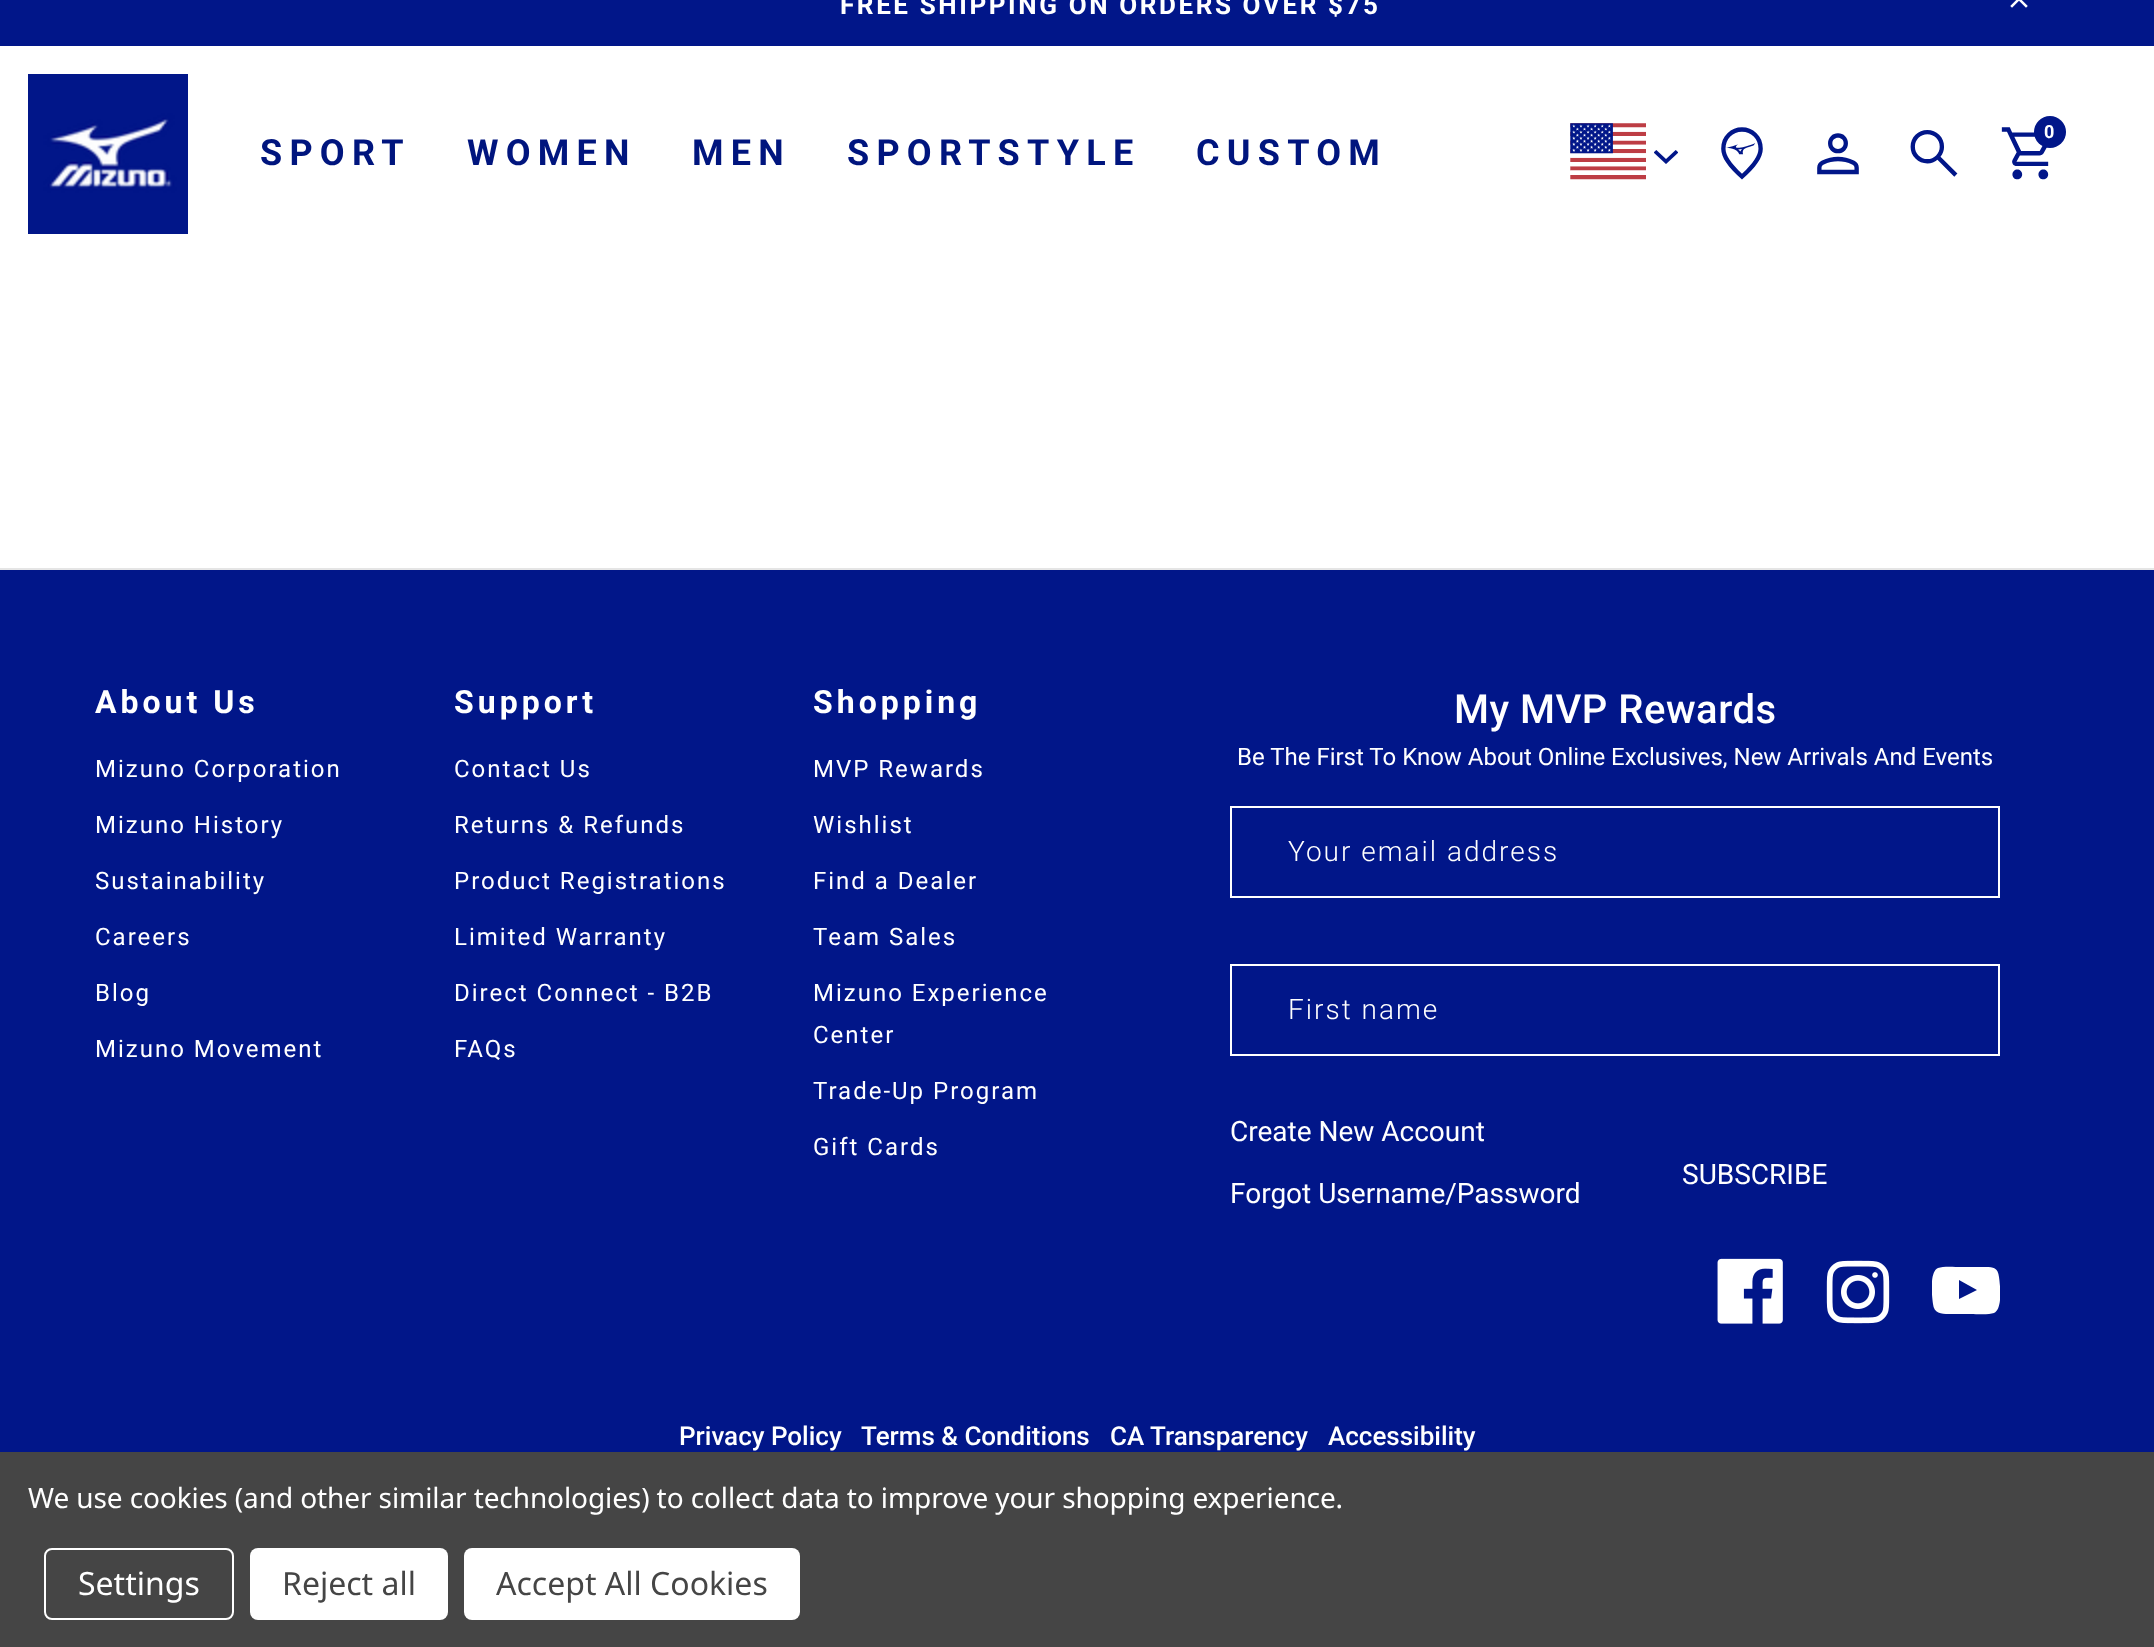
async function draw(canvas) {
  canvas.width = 2154
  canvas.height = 1647
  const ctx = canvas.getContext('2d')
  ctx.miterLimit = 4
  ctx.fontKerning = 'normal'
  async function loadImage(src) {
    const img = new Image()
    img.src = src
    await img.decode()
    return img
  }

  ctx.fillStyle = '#fff'
  ctx.fillRect(0, 0, 2154, 1647)
  ctx.fillStyle = '#011689'
  ctx.fillRect(0, 0, 2154, 46)
  ctx.letterSpacing = '2.6px'
  ctx.font = 'bold 26px Roboto'
  ctx.fillStyle = '#fff'
  ctx.fillText('FREE SHIPPING ON ORDERS OVER $75', 840, 14)
  ctx.drawImage(await loadImage('image0.png'), 2010, 0, 18, 8)
  ctx.drawImage(await loadImage('image1.png'), 1570, 123, 76, 57)
  ctx.drawImage(await loadImage('image2.png'), 1654, 150, 24, 14)
  ctx.drawImage(await loadImage('image3.png'), 1721, 127, 42, 53)
  ctx.drawImage(await loadImage('image4.png'), 1817, 133, 42, 42)
  ctx.drawImage(await loadImage('image5.png'), 1910, 130, 48, 47)
  ctx.drawImage(await loadImage('image6.png'), 2001, 127, 48, 53)
  ctx.fillStyle = '#011689'
  ctx.beginPath()
  ctx.arc(2050, 132, 16, 0, 2 * Math.PI)
  ctx.fill()
  ctx.letterSpacing = '3px'
  ctx.font = 'bold 18px Roboto'
  ctx.fillStyle = '#fff'
  ctx.fillText('0', 2044, 138)
  ctx.drawImage(await loadImage('image7.png'), 28, 74, 160, 160)
  ctx.letterSpacing = '7.25px'
  ctx.font = 'bold 36px Roboto'
  ctx.fillStyle = '#00157e'
  ctx.fillText('SPORT', 260, 165)
  ctx.fillText('WOMEN', 467, 165)
  ctx.fillText('MEN', 692, 165)
  ctx.fillText('SPORTSTYLE', 847, 165)
  ctx.fillText('CUSTOM', 1196, 165)
  ctx.fillStyle = '#011689'
  ctx.fillRect(0, 570, 2154, 882)
  ctx.fillStyle = '#e5e5e5'
  ctx.fillRect(0, 568, 2154, 2)
  ctx.letterSpacing = '4px'
  ctx.font = 'bold 32px Roboto'
  ctx.fillStyle = '#fff'
  ctx.fillText('About Us', 95, 713)
  ctx.letterSpacing = '2px'
  ctx.font = '24px Roboto'
  ctx.fillText('Mizuno Corporation', 95, 777)
  ctx.fillText('Mizuno History', 95, 833)
  ctx.fillText('Sustainability', 95, 889)
  ctx.fillText('Careers', 95, 945)
  ctx.fillText('Blog', 95, 1001)
  ctx.fillText('Mizuno Movement', 95, 1057)
  ctx.letterSpacing = '4px'
  ctx.font = 'bold 32px Roboto'
  ctx.fillText('Support', 454, 713)
  ctx.letterSpacing = '2px'
  ctx.font = '24px Roboto'
  ctx.fillText('Contact Us', 454, 777)
  ctx.fillText('Returns & Refunds', 454, 833)
  ctx.fillText('Product Registrations', 454, 889)
  ctx.fillText('Limited Warranty', 454, 945)
  ctx.fillText('Direct Connect - B2B', 454, 1001)
  ctx.fillText('FAQs', 454, 1057)
  ctx.letterSpacing = '4px'
  ctx.font = 'bold 32px Roboto'
  ctx.fillText('Shopping', 813, 713)
  ctx.letterSpacing = '2px'
  ctx.font = '24px Roboto'
  ctx.fillText('MVP Rewards', 813, 777)
  ctx.fillText('Wishlist', 813, 833)
  ctx.fillText('Find a Dealer', 813, 889)
  ctx.fillText('Team Sales', 813, 945)
  ctx.fillText('Mizuno Experience', 813, 1001)
  ctx.fillText('Center', 813, 1043)
  ctx.fillText('Trade-Up Program', 813, 1099)
  ctx.fillText('Gift Cards', 813, 1155)
  ctx.letterSpacing = '0px'
  ctx.font = '500 26px Roboto'
  ctx.fillText('Privacy Policy', 679, 1445)
  ctx.fillText('Terms & Conditions', 861, 1445)
  ctx.fillText('CA Transparency', 1110, 1445)
  ctx.fillText('Accessibility', 1328, 1445)
  ctx.letterSpacing = '0.5px'
  ctx.font = '500 40px Roboto'
  ctx.fillText('My MVP Rewards', 1454, 723)
  ctx.letterSpacing = '0px'
  ctx.font = '24px Roboto'
  ctx.fillText('Be The First To Know About Online Exclusives, New Arrivals And Events', 1237, 765)
  ctx.strokeStyle = '#fff'
  ctx.lineWidth = 2
  ctx.strokeRect(1231, 807, 768, 90)
  ctx.letterSpacing = '2px'
  ctx.font = '300 28px Roboto'
  ctx.fillText('Your email address', 1288, 861)
  ctx.strokeRect(1231, 965, 768, 90)
  ctx.fillText('First name', 1288, 1019)
  ctx.letterSpacing = '0px'
  ctx.font = '28px Roboto'
  ctx.fillText('Create New Account', 1230, 1141)
  ctx.fillText('Forgot Username/Password', 1230, 1203)
  ctx.fillText('SUBSCRIBE', 1682, 1184)
  ctx.drawImage(await loadImage('image8.png'), 1717, 1258, 66, 66)
  ctx.drawImage(await loadImage('image9.png'), 1826, 1260, 64, 64)
  ctx.save()
  ctx.beginPath()
  ctx.rect(1932, 1258, 68, 68)
  ctx.clip()
  ctx.beginPath()
  ctx.moveTo(1999, 1277)
  ctx.bezierCurveTo(1998, 1266, 1991, 1267, 1982, 1267)
  ctx.lineTo(1961, 1267)
  ctx.bezierCurveTo(1955, 1267, 1943, 1266, 1938, 1268)
  ctx.bezierCurveTo(1929, 1272, 1932, 1297, 1933, 1304)
  ctx.bezierCurveTo(1934, 1315, 1944, 1314, 1953, 1314)
  ctx.lineTo(1971, 1314)
  ctx.bezierCurveTo(1976, 1314, 1989, 1315, 1994, 1313)
  ctx.bezierCurveTo(2003, 1309, 2000, 1284, 1999, 1277)
  ctx.closePath()
  ctx.moveTo(1959, 1299)
  ctx.lineTo(1959, 1280)
  ctx.lineTo(1977, 1290)
  ctx.closePath()
  ctx.fill()
  ctx.restore()
  ctx.fillStyle = '#454545'
  ctx.fillRect(0, 1452, 2154, 195)
  ctx.letterSpacing = '-0.1px'
  ctx.font = '28px Noto Sans'
  ctx.fillStyle = '#fff'
  ctx.fillText('We use cookies (and other similar technologies) to collect data to improve your shopping experience.', 28, 1508)
  ctx.beginPath()
  ctx.roundRect(45, 1549, 188, 70, 7)
  ctx.stroke()
  ctx.letterSpacing = '0px'
  ctx.font = '32px Noto Sans'
  ctx.fillText('Settings', 78, 1595)
  ctx.beginPath()
  ctx.roundRect(250, 1548, 198, 72, 8)
  ctx.fill()
  ctx.fillStyle = '#454545'
  ctx.fillText('Reject all', 282, 1595)
  ctx.fillStyle = '#fff'
  ctx.beginPath()
  ctx.roundRect(464, 1548, 336, 72, 8)
  ctx.fill()
  ctx.fillStyle = '#454545'
  ctx.fillText('Accept All Cookies', 496, 1595)
}

draw(document.querySelector('canvas'))
